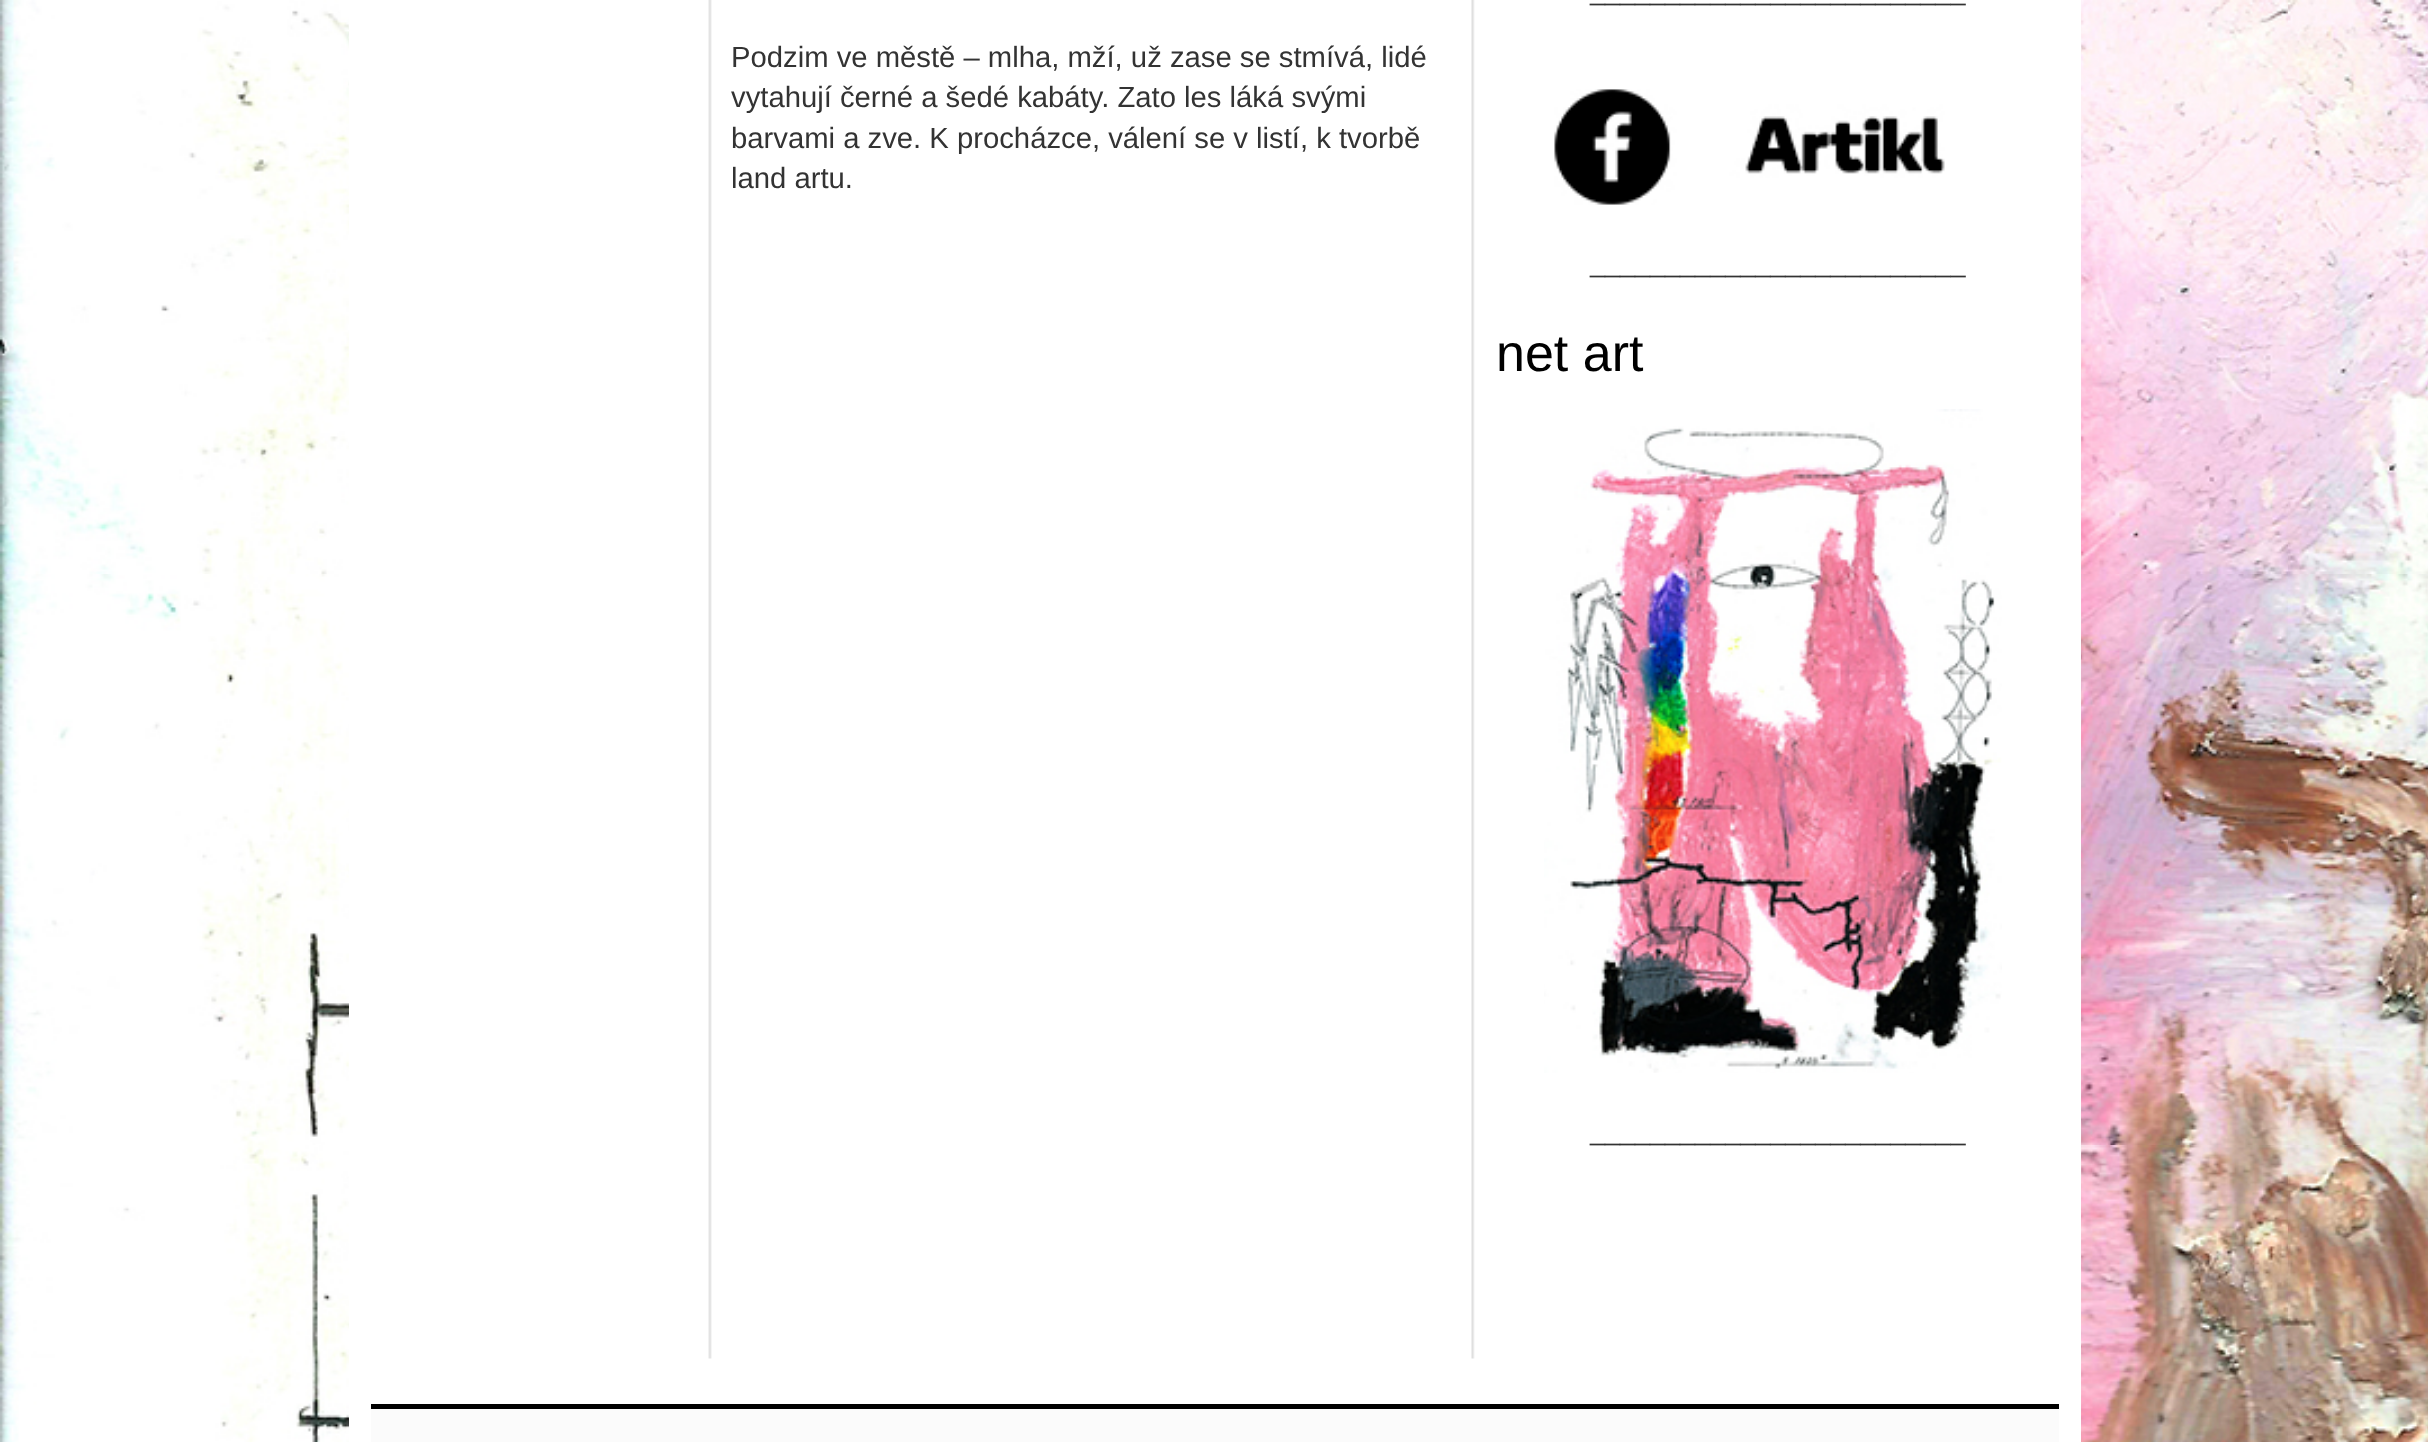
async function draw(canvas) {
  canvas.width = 2428
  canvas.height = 1442
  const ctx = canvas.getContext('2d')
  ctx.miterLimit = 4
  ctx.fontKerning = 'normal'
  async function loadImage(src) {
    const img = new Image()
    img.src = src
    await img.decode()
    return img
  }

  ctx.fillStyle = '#fff'
  ctx.fillRect(0, 0, 2428, 1442)
  ctx.drawImage(await loadImage('image0.png'), 0, 0, 2428, 1442)
  ctx.fillRect(371, 0, 1688, 1404)
  ctx.fillRect(2059, 0, 22, 1442)
  ctx.fillRect(349, 0, 22, 1442)
  ctx.drawImage(await loadImage('image1.png'), 708, 0, 767, 1359)
  ctx.font = '29.25px Liberation Sans'
  ctx.fillStyle = '#333'
  ctx.fillText('Podzim ve městě – mlha, mží, už zase se stmívá, lidé', 731, 67)
  ctx.fillText('vytahují černé a šedé kabáty. Zato les láká svými', 731, 107)
  ctx.fillText('barvami a zve. K procházce, válení se v listí, k tvorbě', 731, 148)
  ctx.fillText('land artu.', 731, 188)
  ctx.font = '27px Liberation Sans'
  ctx.fillText('_________________________', 1590, 0)
  ctx.drawImage(await loadImage('image2.png'), 1554, 89, 391, 116)
  ctx.fillText('_________________________', 1590, 272)
  ctx.font = '52px Liberation Sans'
  ctx.fillStyle = '#000'
  ctx.fillText('net art', 1496, 371)
  ctx.drawImage(await loadImage('image3.png'), 1544, 409, 458, 664)
  ctx.font = '27px Liberation Sans'
  ctx.fillStyle = '#333'
  ctx.fillText('_________________________', 1590, 1140)
  ctx.fillStyle = '#fbfbfb'
  ctx.fillRect(371, 1409, 1688, 33)
  ctx.fillStyle = '#000'
  ctx.fillRect(371, 1404, 1688, 5)
}

draw(document.querySelector('canvas'))
